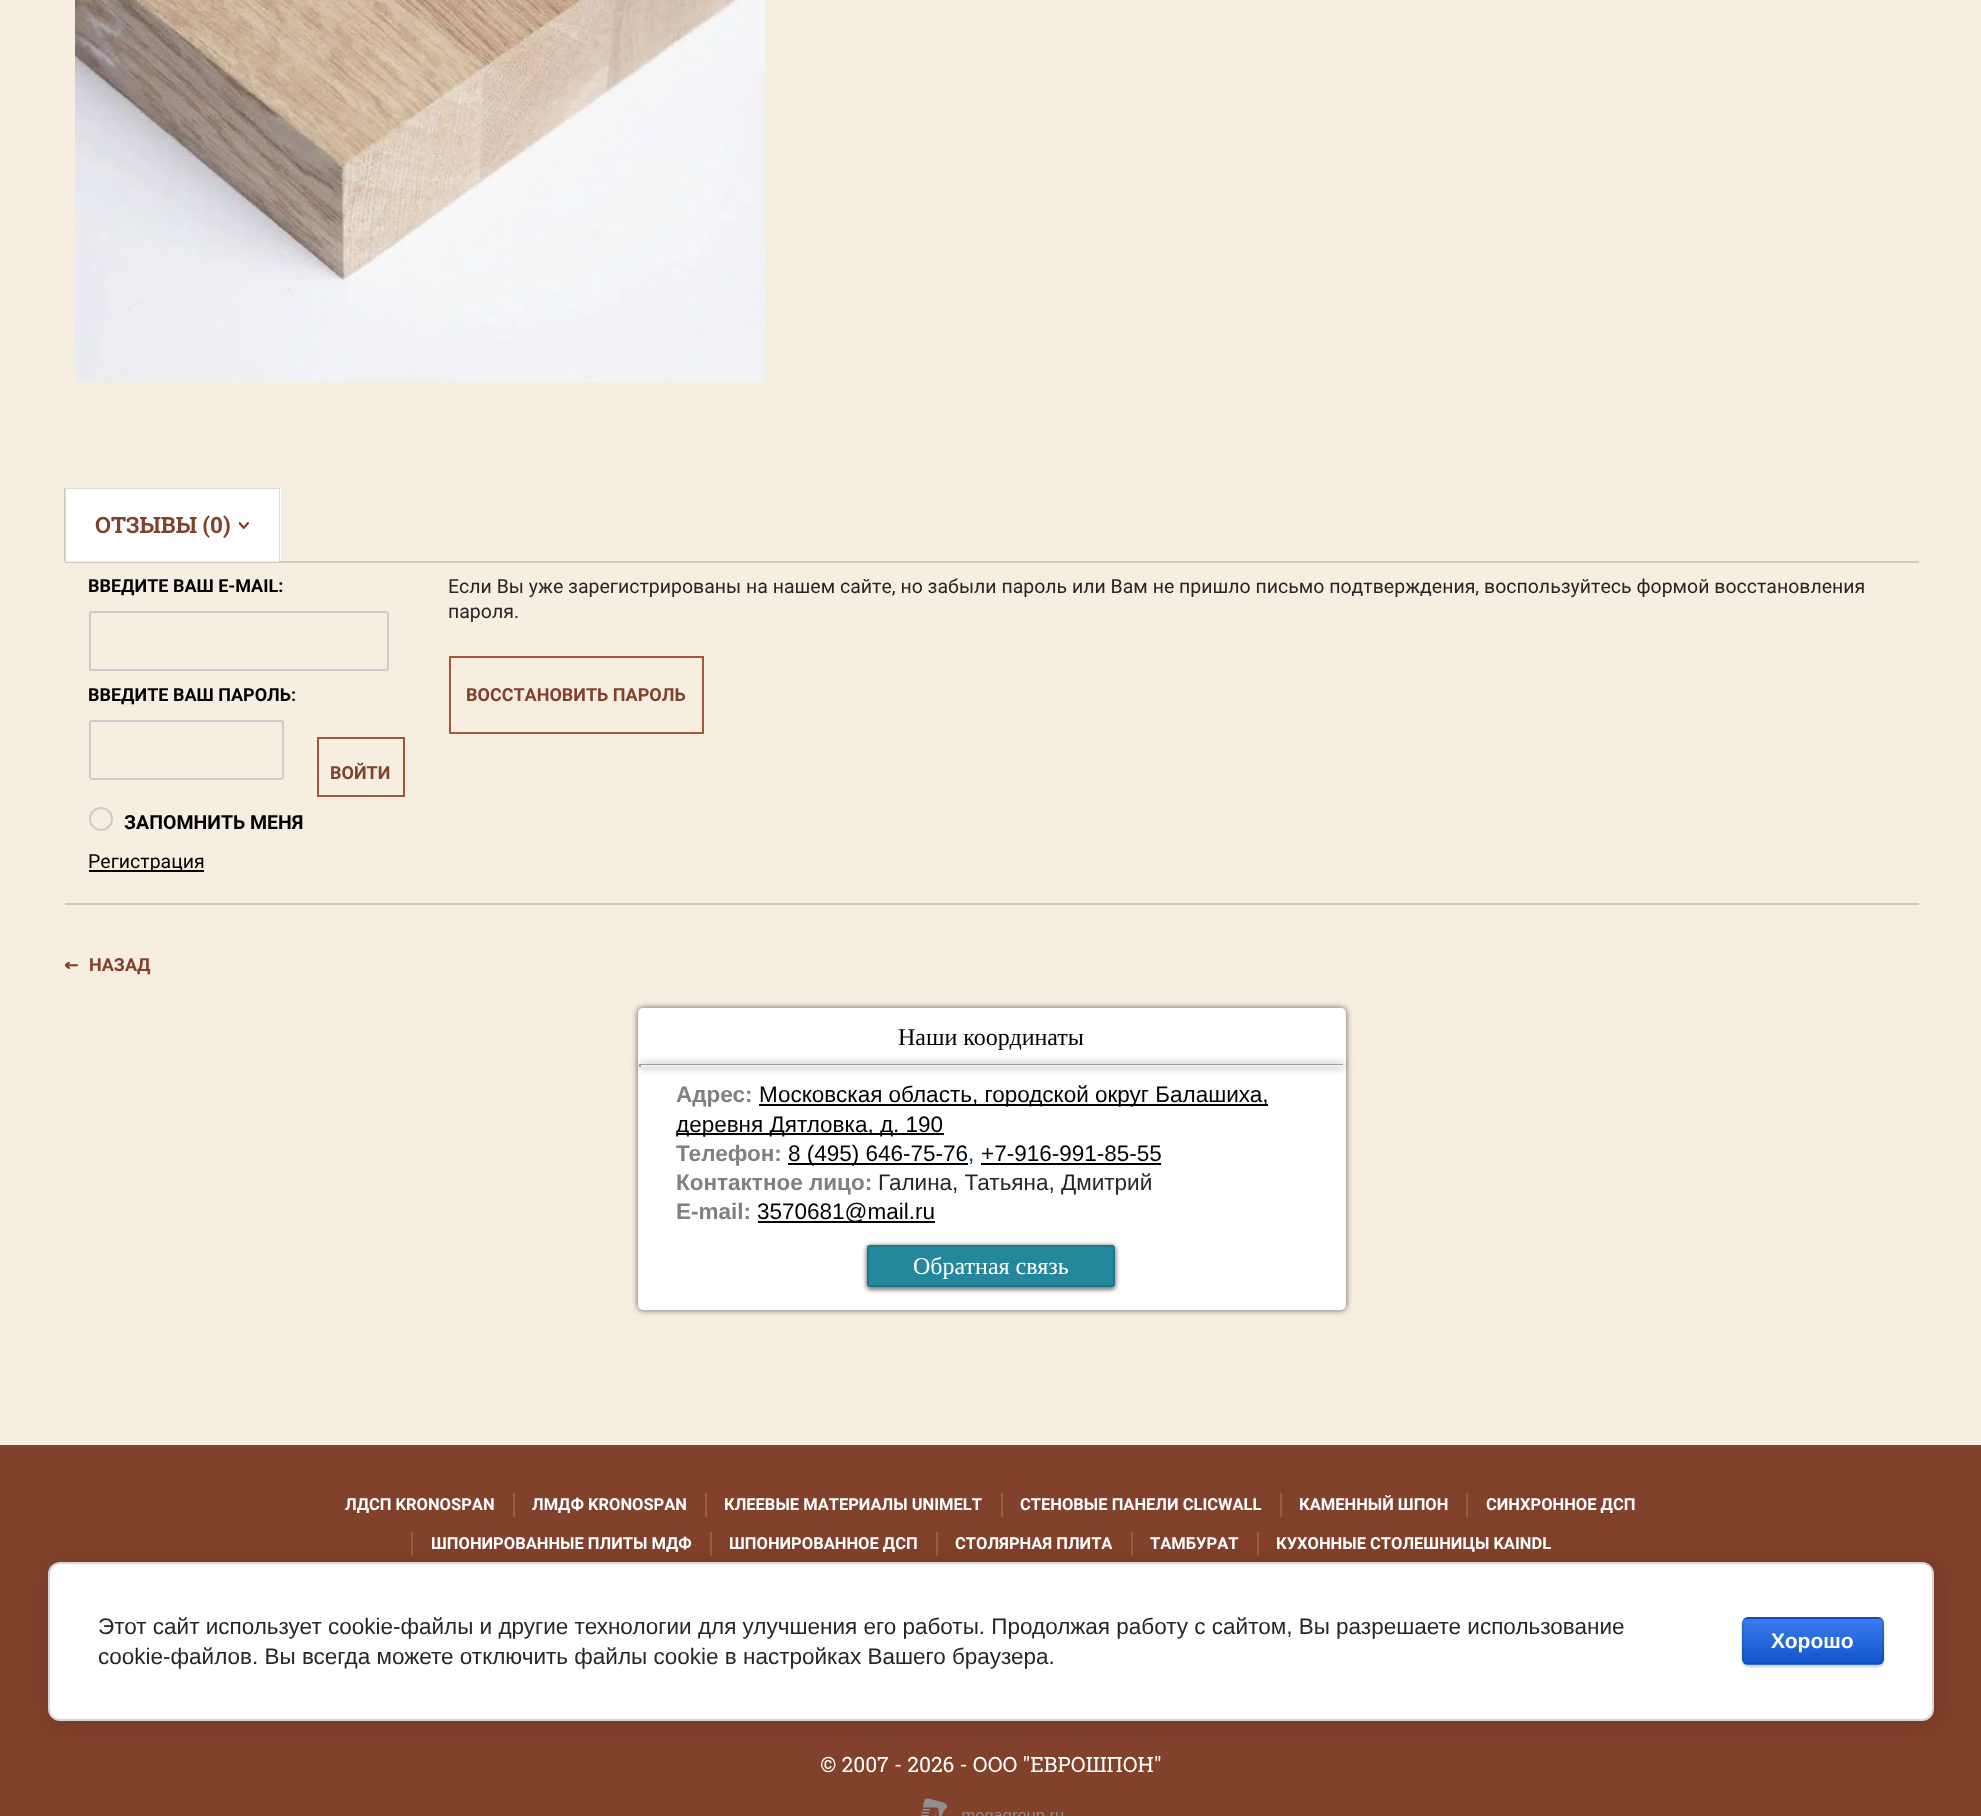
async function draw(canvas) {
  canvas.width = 1981
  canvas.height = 1816
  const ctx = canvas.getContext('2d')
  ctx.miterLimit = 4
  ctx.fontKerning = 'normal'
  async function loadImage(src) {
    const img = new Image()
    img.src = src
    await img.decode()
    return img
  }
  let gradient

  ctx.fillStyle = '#f6eee0'
  ctx.fillRect(0, 0, 1981, 1816)
  ctx.drawImage(await loadImage('image0.png'), 75, 0, 690, 383)
  ctx.fillStyle = '#d1cabe'
  ctx.fillRect(65, 903, 1854, 2)
  ctx.fillStyle = '#fff'
  ctx.fillRect(65, 488, 216, 73)
  ctx.fillStyle = '#d9d9d9'
  ctx.beginPath()
  ctx.moveTo(64, 488)
  ctx.lineTo(280, 488)
  ctx.lineTo(279, 489)
  ctx.lineTo(66, 489)
  ctx.closePath()
  ctx.fill()
  ctx.fillStyle = '#d1cabe'
  ctx.fillRect(65, 561, 1854, 2)
  ctx.fillStyle = '#00000026'
  ctx.beginPath()
  ctx.moveTo(280, 488)
  ctx.lineTo(280, 562)
  ctx.lineTo(279, 561)
  ctx.lineTo(279, 489)
  ctx.closePath()
  ctx.fill()
  ctx.fillStyle = '#f6eee0'
  ctx.beginPath()
  ctx.moveTo(280, 562)
  ctx.lineTo(64, 562)
  ctx.lineTo(66, 561)
  ctx.lineTo(279, 561)
  ctx.closePath()
  ctx.fill()
  ctx.fillStyle = '#00000026'
  ctx.beginPath()
  ctx.moveTo(64, 562)
  ctx.lineTo(64, 488)
  ctx.lineTo(66, 489)
  ctx.lineTo(66, 561)
  ctx.closePath()
  ctx.fill()
  ctx.font = 'bold 22.5px Roboto Slab'
  ctx.fillStyle = '#82412b'
  ctx.fillText('ОТЗЫВЫ (0)', 95, 533)
  ctx.drawImage(await loadImage('image1.png'), 239, 522, 10, 7)
  ctx.save()
  ctx.beginPath()
  ctx.rect(89, 576, 1806, 314)
  ctx.clip()
  ctx.font = 'bold 18px Roboto'
  ctx.fillStyle = '#000'
  ctx.fillText('ВВЕДИТЕ ВАШ E-MAIL:', 88, 592)
  ctx.restore()
  ctx.beginPath()
  ctx.roundRect(90, 612, 298, 58, 2)
  ctx.strokeStyle = '#ccc'
  ctx.lineWidth = 2
  ctx.stroke()
  ctx.save()
  ctx.beginPath()
  ctx.rect(89, 576, 1806, 314)
  ctx.clip()
  ctx.font = 'bold 18px Roboto'
  ctx.fillStyle = '#000'
  ctx.fillText('ВВЕДИТЕ ВАШ ПАРОЛЬ:', 88, 701)
  ctx.restore()
  ctx.beginPath()
  ctx.roundRect(90, 721, 193, 58, 2)
  ctx.stroke()
  ctx.strokeStyle = '#a85438'
  ctx.strokeRect(318, 738, 86, 58)
  ctx.font = 'bold 18px Roboto'
  ctx.fillText('ВОЙТИ', 330, 779)
  ctx.beginPath()
  ctx.arc(101, 819, 11, 0, 2 * Math.PI)
  ctx.strokeStyle = '#cdcdcd'
  ctx.stroke()
  ctx.font = 'bold 19.5px Roboto'
  ctx.fillStyle = '#000'
  ctx.fillText('ЗАПОМНИТЬ МЕНЯ', 124, 829)
  ctx.fillRect(89, 870, 115, 2)
  ctx.font = '19.5px Roboto'
  ctx.fillText('Регистрация', 88, 868)
  ctx.fillStyle = '#262626'
  ctx.fillText('Если Вы уже зарегистрированы на нашем сайте, но забыли пароль или Вам не пришло письмо подтверждения, воспользуйтесь формой восстановления', 448, 593)
  ctx.fillText('пароля.', 448, 618)
  ctx.strokeStyle = '#a85438'
  ctx.strokeRect(450, 657, 253, 76)
  ctx.font = 'bold 18px Roboto'
  ctx.fillStyle = '#82412b'
  ctx.fillText('ВОССТАНОВИТЬ ПАРОЛЬ', 466, 701)
  ctx.drawImage(await loadImage('image2.png'), 65, 962, 13, 7)
  ctx.fillText('НАЗАД', 89, 971)
  ctx.fillStyle = '#5a5a5a'
  ctx.filter = 'blur(3px)'
  ctx.beginPath()
  ctx.roundRect(638, 1008, 708, 302, 5)
  ctx.fill()
  ctx.filter = 'none'
  ctx.fillStyle = '#fff'
  ctx.beginPath()
  ctx.roundRect(639, 1009, 706, 300, 4)
  ctx.fill()
  ctx.strokeStyle = '#fff'
  ctx.stroke()
  ctx.font = '24px Liberation Serif'
  ctx.fillStyle = '#000'
  ctx.fillText('Наши координаты', 898, 1045)
  ctx.fillStyle = '#8c8c8c'
  ctx.filter = 'blur(4.5px)'
  ctx.beginPath()
  ctx.rect(639, 1064, 705, 3)
  ctx.fill()
  ctx.filter = 'none'
  ctx.fillStyle = '#9f9f9f'
  ctx.fillRect(639, 1064, 705, 1)
  ctx.fillStyle = '#eee'
  ctx.fillRect(1343, 1064, 2, 3)
  ctx.fillRect(639, 1065, 705, 2)
  ctx.fillStyle = '#9f9f9f'
  ctx.fillRect(639, 1064, 2, 3)
  ctx.font = 'bold 22.5px Liberation Sans'
  ctx.fillStyle = '#808080'
  ctx.fillText('Адрес:', 676, 1102)
  ctx.fillStyle = '#000'
  ctx.fillRect(759, 1104, 509, 2)
  ctx.font = '22.5px Liberation Sans'
  ctx.fillText('Московская область, городской округ Балашиха,', 759, 1102)
  ctx.fillRect(677, 1133, 267, 2)
  ctx.fillText('деревня Дятловка, д. 190', 676, 1132)
  ctx.font = 'bold 22.5px Liberation Sans'
  ctx.fillStyle = '#808080'
  ctx.fillText('Телефон:', 676, 1161)
  ctx.fillStyle = '#000'
  ctx.fillRect(788, 1163, 180, 2)
  ctx.font = '22.5px Liberation Sans'
  ctx.fillText('8 (495) 646-75-76', 788, 1161)
  ctx.fillStyle = '#064879'
  ctx.fillText(',', 968, 1161)
  ctx.fillStyle = '#000'
  ctx.fillText('+7-916-991-85-55', 981, 1161)
  ctx.fillRect(981, 1163, 180, 2)
  ctx.font = 'bold 22.5px Liberation Sans'
  ctx.fillStyle = '#808080'
  ctx.fillText('Контактное лицо:', 676, 1190)
  ctx.font = '22.5px Liberation Sans'
  ctx.fillStyle = '#262626'
  ctx.fillText('Галина, Татьяна, Дмитрий', 878, 1190)
  ctx.font = 'bold 22.5px Liberation Sans'
  ctx.fillStyle = '#808080'
  ctx.fillText('E-mail:', 676, 1219)
  ctx.fillStyle = '#000'
  ctx.fillRect(758, 1221, 177, 2)
  ctx.font = '22.5px Liberation Sans'
  ctx.fillText('3570681@mail.ru', 757, 1219)
  ctx.fillStyle = '#7d7d7d'
  ctx.filter = 'blur(2px)'
  ctx.beginPath()
  ctx.roundRect(866, 1245, 250, 45, 5)
  ctx.fill()
  ctx.filter = 'none'
  ctx.fillStyle = '#24879e'
  ctx.beginPath()
  ctx.roundRect(868, 1246, 246, 40, 2)
  ctx.fill()
  ctx.strokeStyle = '#1c7589'
  ctx.stroke()
  ctx.font = '24px Liberation Serif'
  ctx.fillStyle = '#fff'
  ctx.fillText('Обратная связь', 913, 1274)
  ctx.fillStyle = '#82412b'
  ctx.fillRect(0, 1445, 1981, 371)
  ctx.font = 'bold 16.5px Roboto'
  ctx.fillStyle = '#fff'
  ctx.fillText('ЛДСП KRONOSPAN', 345, 1510)
  ctx.fillStyle = '#955e4b'
  ctx.fillRect(513, 1493, 2, 24)
  ctx.fillStyle = '#fff'
  ctx.fillText('ЛМДФ KRONOSPAN', 532, 1510)
  ctx.fillStyle = '#955e4b'
  ctx.fillRect(705, 1493, 2, 24)
  ctx.fillStyle = '#fff'
  ctx.fillText('КЛЕЕВЫЕ МАТЕРИАЛЫ UNIMELT', 724, 1510)
  ctx.fillStyle = '#955e4b'
  ctx.fillRect(1001, 1493, 2, 24)
  ctx.fillStyle = '#fff'
  ctx.fillText('СТЕНОВЫЕ ПАНЕЛИ CLICWALL', 1020, 1510)
  ctx.fillStyle = '#955e4b'
  ctx.fillRect(1280, 1493, 2, 24)
  ctx.fillStyle = '#fff'
  ctx.fillText('КАМЕННЫЙ ШПОН', 1299, 1510)
  ctx.fillStyle = '#955e4b'
  ctx.fillRect(1466, 1493, 2, 24)
  ctx.fillStyle = '#fff'
  ctx.fillText('СИНХРОННОЕ ДСП', 1486, 1510)
  ctx.fillStyle = '#955e4b'
  ctx.fillRect(411, 1532, 2, 24)
  ctx.fillStyle = '#fff'
  ctx.fillText('ШПОНИРОВАННЫЕ ПЛИТЫ МДФ', 431, 1549)
  ctx.fillStyle = '#955e4b'
  ctx.fillRect(710, 1532, 2, 24)
  ctx.fillStyle = '#fff'
  ctx.fillText('ШПОНИРОВАННОЕ ДСП', 729, 1549)
  ctx.fillStyle = '#955e4b'
  ctx.fillRect(936, 1532, 2, 24)
  ctx.fillStyle = '#fff'
  ctx.fillText('СТОЛЯРНАЯ ПЛИТА', 955, 1549)
  ctx.fillStyle = '#955e4b'
  ctx.fillRect(1131, 1532, 2, 24)
  ctx.fillStyle = '#fff'
  ctx.fillText('ТАМБУРАТ', 1150, 1549)
  ctx.fillStyle = '#955e4b'
  ctx.fillRect(1257, 1532, 2, 24)
  ctx.fillStyle = '#fff'
  ctx.fillText('КУХОННЫЕ СТОЛЕШНИЦЫ KAINDL', 1276, 1549)
  ctx.font = '21px Roboto Slab'
  ctx.fillText('© 2007 - 2026 - ООО "ЕВРОШПОН"', 820, 1772)
  ctx.drawImage(await loadImage('image3.png'), 921, 1798, 142, 18)
  ctx.fillStyle = '#00000024'
  ctx.filter = 'blur(13.5px)'
  ctx.beginPath()
  ctx.roundRect(51, 1565, 1886, 159, 12)
  ctx.fill()
  ctx.filter = 'none'
  ctx.fillStyle = '#fff'
  ctx.beginPath()
  ctx.roundRect(49, 1563, 1884, 157, 11)
  ctx.fill()
  ctx.strokeStyle = '#d6d6d6'
  ctx.stroke()
  ctx.font = '22.5px Liberation Sans'
  ctx.fillStyle = '#262626'
  ctx.fillText('Этот сайт использует cookie-файлы и другие технологии для улучшения его работы. Продолжая работу с сайтом, Вы разрешаете использование', 98, 1634)
  ctx.fillText('cookie-файлов. Вы всегда можете отключить файлы cookie в настройках Вашего браузера.', 98, 1664)
  ctx.fillStyle = '#00000033'
  ctx.filter = 'blur(1px)'
  ctx.beginPath()
  ctx.roundRect(1742, 1619, 142, 48, 6)
  ctx.fill()
  ctx.filter = 'none'
  ctx.save()
  ctx.beginPath()
  ctx.roundRect(1742, 1617, 142, 48, 6)
  ctx.clip()
  gradient = ctx.createLinearGradient(1813, 1574, 1813, 1619)
  gradient.addColorStop(0, '#3b7cef')
  gradient.addColorStop(1, '#15c')
  ctx.fillStyle = gradient
  ctx.fillRect(1742, 1617, 142, 2)
  gradient = ctx.createLinearGradient(1813, 1619, 1813, 1664)
  gradient.addColorStop(0, '#3b7cef')
  gradient.addColorStop(1, '#15c')
  ctx.fillStyle = gradient
  ctx.fillRect(1742, 1619, 142, 45)
  gradient = ctx.createLinearGradient(1813, 1664, 1813, 1709)
  gradient.addColorStop(0, '#3b7cef')
  gradient.addColorStop(1, '#15c')
  ctx.fillStyle = gradient
  ctx.fillRect(1742, 1664, 142, 1)
  ctx.restore()
  ctx.beginPath()
  ctx.roundRect(1743, 1618, 140, 46, 5)
  ctx.strokeStyle = '#0000001a'
  ctx.stroke()
  ctx.font = 'bold 21px Liberation Sans'
  ctx.fillStyle = '#fff'
  ctx.fillText('Хорошо', 1771, 1648)
}

draw(document.querySelector('canvas'))
